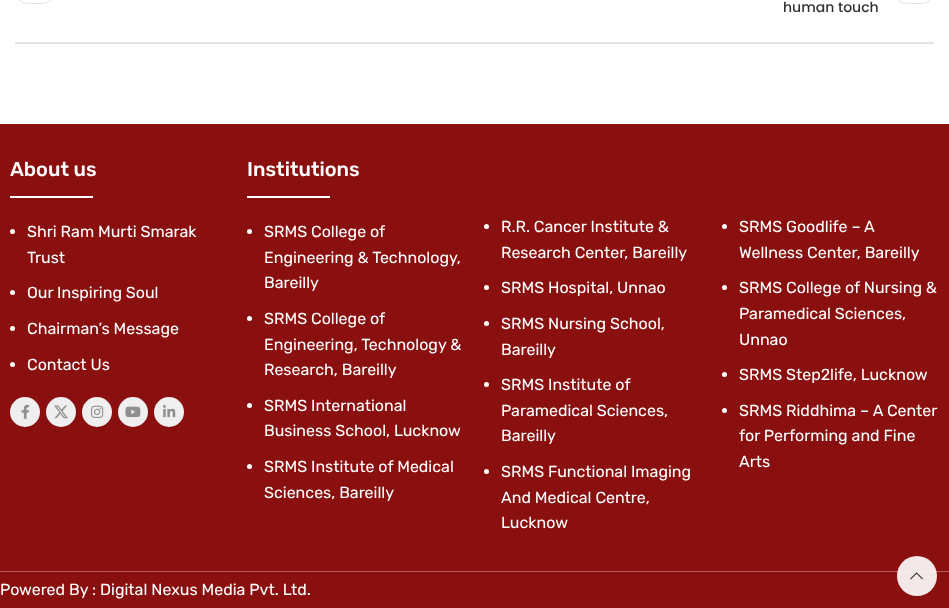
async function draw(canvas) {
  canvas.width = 949
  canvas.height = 608
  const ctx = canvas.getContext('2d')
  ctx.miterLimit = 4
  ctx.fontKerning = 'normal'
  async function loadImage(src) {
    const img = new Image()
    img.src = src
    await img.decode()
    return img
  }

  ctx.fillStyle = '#fff'
  ctx.fillRect(0, 0, 949, 608)
  ctx.fillStyle = '#e4e4e4'
  ctx.fillRect(15, 42, 919, 2)
  ctx.beginPath()
  ctx.roundRect(15.5, -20.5, 39, 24, 19.5)
  ctx.strokeStyle = '#e4e4e4'
  ctx.stroke()
  ctx.beginPath()
  ctx.roundRect(894.5, -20.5, 39, 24, 19.5)
  ctx.stroke()
  ctx.font = '500 14px Poppins'
  ctx.fillStyle = '#333'
  ctx.fillText('human touch', 783, 12)
  ctx.fillStyle = '#8a1010'
  ctx.fillRect(0, 124, 949, 447)
  ctx.font = '300 20px Rubik'
  ctx.fillStyle = '#fff'
  ctx.fillText('About us', 10, 176)
  ctx.fillRect(10, 196, 83, 2)
  ctx.beginPath()
  ctx.arc(12.5, 231.5, 2.5, 0, 2 * Math.PI)
  ctx.fill()
  ctx.font = '300 16px "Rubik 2"'
  ctx.fillText('Shri Ram Murti Smarak', 27, 237)
  ctx.fillText('Trust', 27, 263)
  ctx.beginPath()
  ctx.arc(12.5, 292.5, 2.5, 0, 2 * Math.PI)
  ctx.fill()
  ctx.fillText('Our Inspiring Soul', 27, 298)
  ctx.beginPath()
  ctx.arc(12.5, 328.5, 2.5, 0, 2 * Math.PI)
  ctx.fill()
  ctx.fillText('Chairman’s Message', 27, 334)
  ctx.beginPath()
  ctx.arc(12.5, 364.5, 2.5, 0, 2 * Math.PI)
  ctx.fill()
  ctx.fillText('Contact Us', 27, 370)
  ctx.fillStyle = '#efefef'
  ctx.beginPath()
  ctx.arc(25, 412, 15, 0, 2 * Math.PI)
  ctx.fill()
  ctx.drawImage(await loadImage('image0.png'), 21, 404, 9, 15)
  ctx.beginPath()
  ctx.arc(61, 412, 15, 0, 2 * Math.PI)
  ctx.fill()
  ctx.drawImage(await loadImage('image1.png'), 54, 405, 14, 14)
  ctx.beginPath()
  ctx.arc(97, 412, 15, 0, 2 * Math.PI)
  ctx.fill()
  ctx.drawImage(await loadImage('image2.png'), 91, 405, 13, 13)
  ctx.beginPath()
  ctx.arc(133, 412, 15, 0, 2 * Math.PI)
  ctx.fill()
  ctx.drawImage(await loadImage('image3.png'), 125, 406, 16, 12)
  ctx.beginPath()
  ctx.arc(169, 412, 15, 0, 2 * Math.PI)
  ctx.fill()
  ctx.drawImage(await loadImage('image4.png'), 163, 404, 13, 14)
  ctx.font = '300 20px Rubik'
  ctx.fillStyle = '#fff'
  ctx.fillText('Institutions', 247, 176)
  ctx.fillRect(247, 196, 83, 2)
  ctx.beginPath()
  ctx.arc(249.5, 231.5, 2.5, 0, 2 * Math.PI)
  ctx.fill()
  ctx.font = '300 16px "Rubik 2"'
  ctx.fillText('SRMS College of', 264, 237)
  ctx.fillText('Engineering & Technology,', 264, 263)
  ctx.fillText('Bareilly', 264, 288)
  ctx.beginPath()
  ctx.arc(249.5, 318.5, 2.5, 0, 2 * Math.PI)
  ctx.fill()
  ctx.fillText('SRMS College of', 264, 324)
  ctx.fillText('Engineering, Technology &', 264, 350)
  ctx.fillText('Research, Bareilly', 264, 375)
  ctx.beginPath()
  ctx.arc(249.5, 405.5, 2.5, 0, 2 * Math.PI)
  ctx.fill()
  ctx.fillText('SRMS International', 264, 411)
  ctx.fillText('Business School, Lucknow', 264, 436)
  ctx.beginPath()
  ctx.arc(249.5, 466.5, 2.5, 0, 2 * Math.PI)
  ctx.fill()
  ctx.fillText('SRMS Institute of Medical', 264, 472)
  ctx.fillText('Sciences, Bareilly', 264, 498)
  ctx.beginPath()
  ctx.arc(486.5, 226.5, 2.5, 0, 2 * Math.PI)
  ctx.fill()
  ctx.fillText('R.R. Cancer Institute &', 501, 232)
  ctx.fillText('Research Center, Bareilly', 501, 258)
  ctx.beginPath()
  ctx.arc(486.5, 287.5, 2.5, 0, 2 * Math.PI)
  ctx.fill()
  ctx.fillText('SRMS Hospital, Unnao', 501, 293)
  ctx.beginPath()
  ctx.arc(486.5, 323.5, 2.5, 0, 2 * Math.PI)
  ctx.fill()
  ctx.fillText('SRMS Nursing School,', 501, 329)
  ctx.fillText('Bareilly', 501, 355)
  ctx.beginPath()
  ctx.arc(486.5, 384.5, 2.5, 0, 2 * Math.PI)
  ctx.fill()
  ctx.fillText('SRMS Institute of', 501, 390)
  ctx.fillText('Paramedical Sciences,', 501, 416)
  ctx.fillText('Bareilly', 501, 441)
  ctx.beginPath()
  ctx.arc(486.5, 471.5, 2.5, 0, 2 * Math.PI)
  ctx.fill()
  ctx.fillText('SRMS Functional Imaging', 501, 477)
  ctx.fillText('And Medical Centre,', 501, 503)
  ctx.fillText('Lucknow', 501, 528)
  ctx.beginPath()
  ctx.arc(724.5, 226.5, 2.5, 0, 2 * Math.PI)
  ctx.fill()
  ctx.fillText('SRMS Goodlife – A', 739, 232)
  ctx.fillText('Wellness Center, Bareilly', 739, 258)
  ctx.beginPath()
  ctx.arc(724.5, 287.5, 2.5, 0, 2 * Math.PI)
  ctx.fill()
  ctx.fillText('SRMS College of Nursing &', 739, 293)
  ctx.fillText('Paramedical Sciences,', 739, 319)
  ctx.fillText('Unnao', 739, 345)
  ctx.beginPath()
  ctx.arc(724.5, 374.5, 2.5, 0, 2 * Math.PI)
  ctx.fill()
  ctx.fillText('SRMS Step2life, Lucknow', 739, 380)
  ctx.beginPath()
  ctx.arc(724.5, 410.5, 2.5, 0, 2 * Math.PI)
  ctx.fill()
  ctx.fillText('SRMS Riddhima – A Center', 739, 416)
  ctx.fillText('for Performing and Fine', 739, 441)
  ctx.fillText('Arts', 739, 467)
  ctx.fillStyle = '#8a1010'
  ctx.fillRect(0, 572, 949, 36)
  ctx.fillStyle = '#b15f5f'
  ctx.fillRect(0, 571, 949, 1)
  ctx.fillStyle = '#fff'
  ctx.fillText('Powered By : Digital Nexus Media Pvt. Ltd.', 0, 595)
  ctx.fillStyle = '#ffffffe6'
  ctx.beginPath()
  ctx.arc(917, 576, 20, 0, 2 * Math.PI)
  ctx.fill()
  ctx.drawImage(await loadImage('image5.png'), 910, 572, 13, 8)
}

draw(document.querySelector('canvas'))
